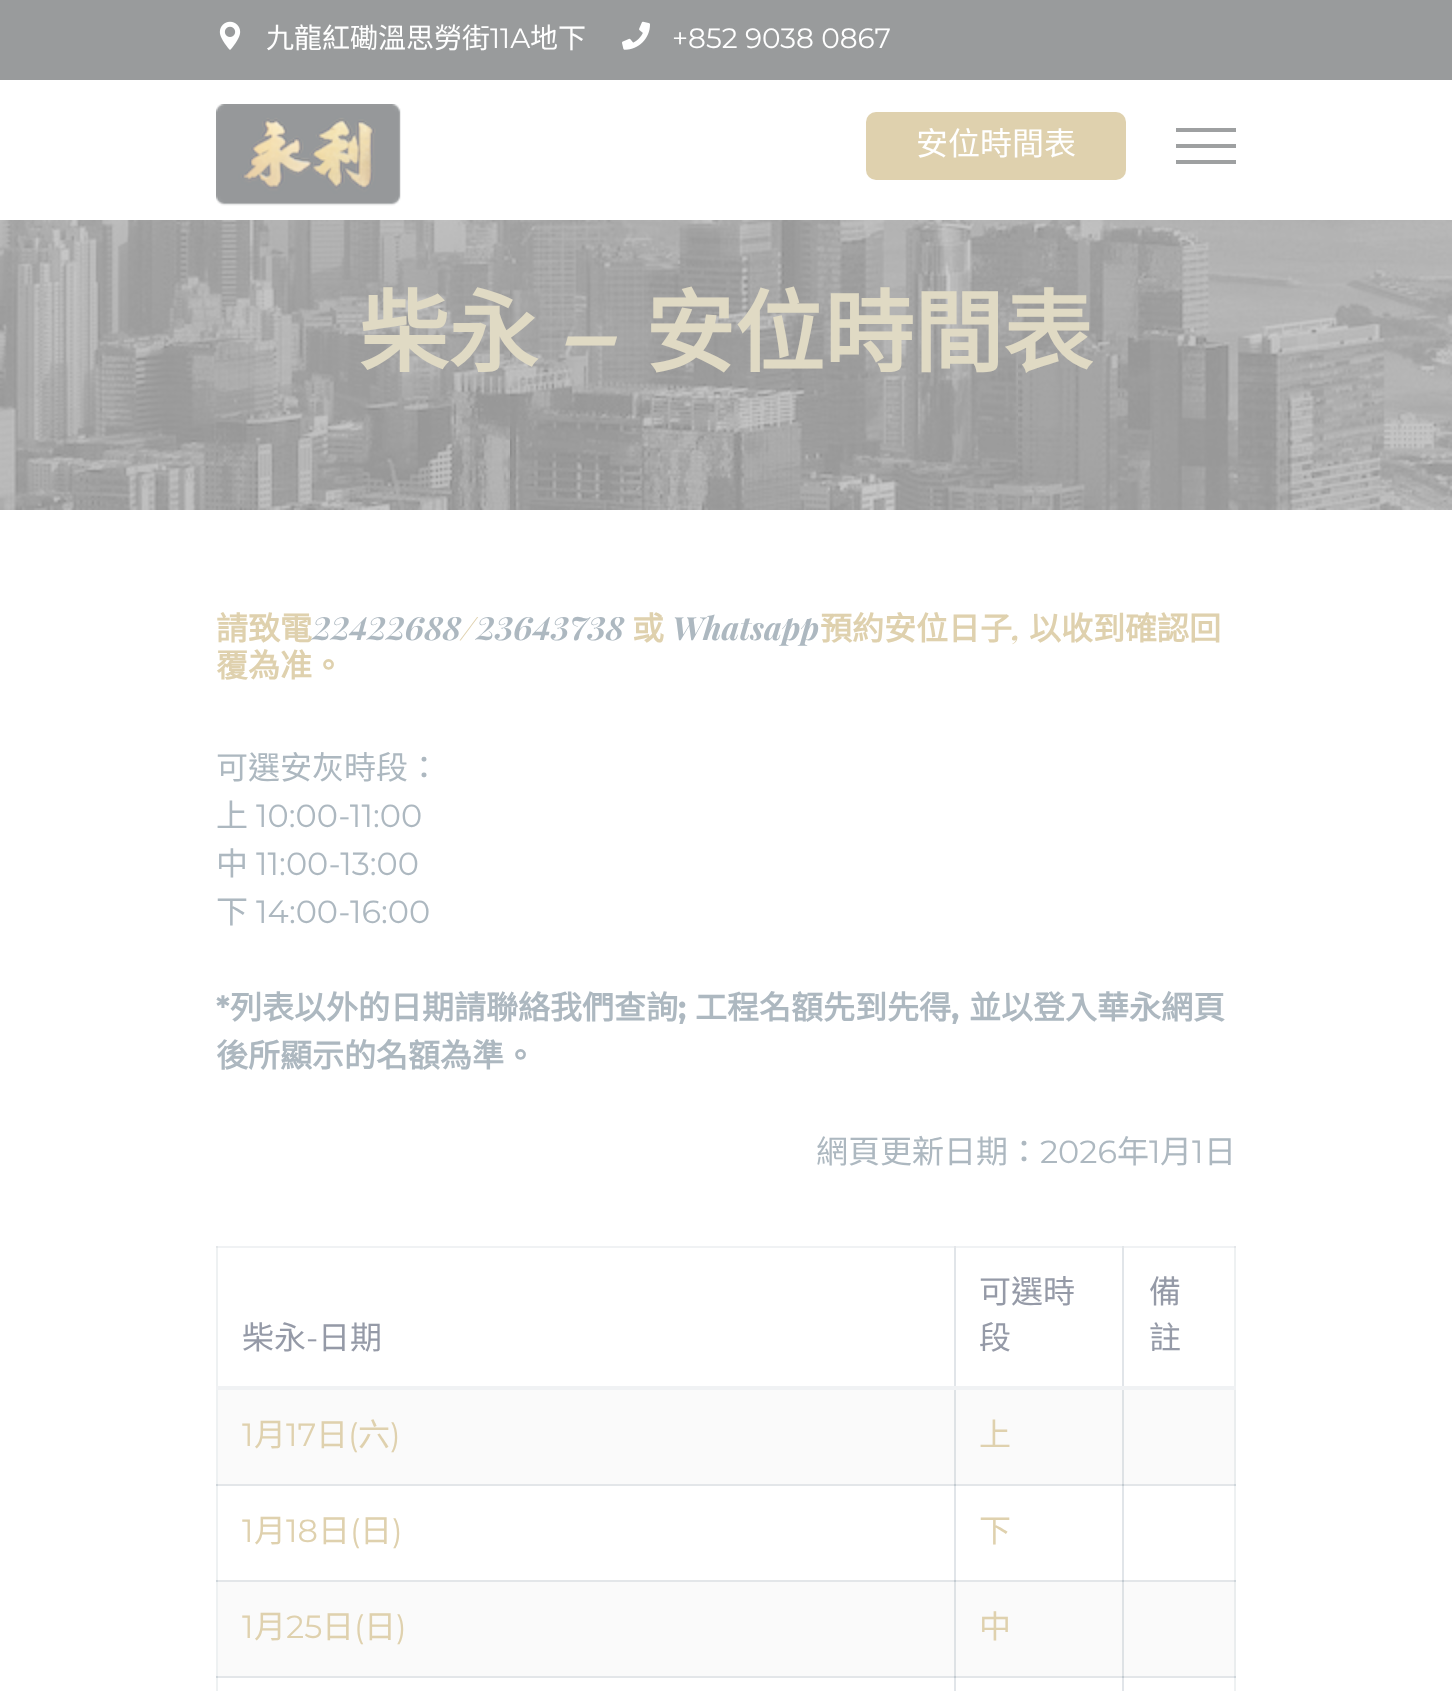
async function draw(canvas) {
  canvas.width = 1452
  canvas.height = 1691
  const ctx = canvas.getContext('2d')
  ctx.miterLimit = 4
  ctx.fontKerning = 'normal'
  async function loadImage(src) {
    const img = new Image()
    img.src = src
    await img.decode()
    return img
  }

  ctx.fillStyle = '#fff'
  ctx.fillRect(0, 0, 1452, 1691)
  ctx.fillStyle = '#eef1f2'
  ctx.fillRect(216, 1246, 2, 445)
  ctx.fillStyle = '#e1e5e9'
  ctx.fillRect(954, 1246, 2, 144)
  ctx.fillRect(1122, 1246, 2, 144)
  ctx.fillStyle = '#eef1f2'
  ctx.fillRect(1234, 1246, 2, 144)
  ctx.fillStyle = '#e1e5e9'
  ctx.fillRect(954, 1484, 2, 98)
  ctx.fillRect(1122, 1484, 2, 98)
  ctx.fillStyle = '#eef1f2'
  ctx.fillRect(1234, 1484, 2, 98)
  ctx.fillStyle = '#e1e5e9'
  ctx.fillRect(954, 1676, 2, 15)
  ctx.fillRect(1122, 1676, 2, 15)
  ctx.fillStyle = '#eef1f2'
  ctx.fillRect(1234, 1676, 2, 15)
  ctx.fillStyle = '#999b9c'
  ctx.fillRect(0, 0, 1452, 80)
  ctx.drawImage(await loadImage('image0.png'), 219, 21, 22, 29)
  ctx.font = '28px Noto Sans CJK HK'
  ctx.fillStyle = '#fff'
  ctx.fillText('九龍紅磡溫思勞街', 266, 48)
  ctx.font = '28px Montserrat'
  ctx.fillText('11A', 490, 48)
  ctx.font = '28px Noto Sans CJK HK'
  ctx.fillText('地下', 530, 48)
  ctx.drawImage(await loadImage('image1.png'), 622, 21, 28, 29)
  ctx.font = '28px Montserrat'
  ctx.fillText('+852 9038 0867', 672, 48)
  ctx.drawImage(await loadImage('image2.png'), 216, 104, 185, 102)
  ctx.fillStyle = '#dfd1ae'
  ctx.beginPath()
  ctx.roundRect(866, 112, 260, 68, 10)
  ctx.fill()
  ctx.font = '32px Noto Sans CJK HK'
  ctx.fillStyle = '#fff'
  ctx.fillText('安位時間表', 916, 155)
  ctx.fillStyle = '#9ea0a1'
  ctx.fillRect(1176, 128, 60, 4)
  ctx.fillRect(1176, 160, 60, 4)
  ctx.fillRect(1176, 144, 60, 4)
  ctx.drawImage(await loadImage('image3.png'), 0, 220, 1452, 290)
  ctx.font = 'bold 89.5px Noto Sans CJK HK'
  ctx.fillStyle = '#e0dac4'
  ctx.fillText('柴永', 359, 365)
  ctx.font = 'italic bold 89.5px Playfair Display'
  ctx.fillText('–', 561, 365)
  ctx.font = 'bold 89.5px Noto Sans CJK HK'
  ctx.fillText('安位時間表', 645, 365)
  ctx.font = 'bold 32px Noto Sans CJK HK'
  ctx.fillStyle = '#dfd1ae'
  ctx.fillText('請致電', 216, 640)
  ctx.font = 'italic bold 32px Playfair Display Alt'
  ctx.fillStyle = '#adb8c0'
  ctx.fillText('22422688', 312, 640)
  ctx.font = 'italic bold 32px Playfair Display'
  ctx.fillStyle = '#dfd1ae'
  ctx.fillText('/', 461, 640)
  ctx.font = 'italic bold 32px Playfair Display Alt'
  ctx.fillStyle = '#adb8c0'
  ctx.fillText('23643738', 476, 640)
  ctx.font = 'bold 32px Noto Sans CJK HK'
  ctx.fillStyle = '#dfd1ae'
  ctx.fillText('或', 632, 640)
  ctx.font = 'italic bold 32px Playfair Display'
  ctx.fillStyle = '#adb8c0'
  ctx.fillText('Whatsapp', 672, 640)
  ctx.font = 'bold 32px Noto Sans CJK HK'
  ctx.fillStyle = '#dfd1ae'
  ctx.fillText('預約安位日子', 820, 640)
  ctx.font = 'italic bold 32px Playfair Display'
  ctx.fillText(',', 1012, 640)
  ctx.font = 'bold 32px Noto Sans CJK HK'
  ctx.fillText('以收到確認回', 1029, 640)
  ctx.fillText('覆為准。', 216, 677)
  ctx.font = '32px Noto Sans CJK HK'
  ctx.fillStyle = '#adb8c0'
  ctx.fillText('可選安灰時段：', 216, 779)
  ctx.fillText('上', 216, 827)
  ctx.font = '32px Montserrat'
  ctx.fillText('10:00-11:00', 256, 827)
  ctx.font = '32px Noto Sans CJK HK'
  ctx.fillText('中', 216, 875)
  ctx.font = '32px Montserrat'
  ctx.fillText('11:00-13:00', 256, 875)
  ctx.font = '32px Noto Sans CJK HK'
  ctx.fillText('下', 216, 923)
  ctx.font = '32px Montserrat'
  ctx.fillText('14:00-16:00', 256, 923)
  ctx.font = 'bold 32px Montserrat'
  ctx.fillText('*', 216, 1019)
  ctx.font = 'bold 32px Noto Sans CJK HK'
  ctx.fillText('列表以外的日期請聯絡我們查詢', 230, 1019)
  ctx.font = 'bold 32px Montserrat'
  ctx.fillText(';', 678, 1019)
  ctx.font = 'bold 32px Noto Sans CJK HK'
  ctx.fillText('工程名額先到先得', 695, 1019)
  ctx.font = 'bold 32px Montserrat'
  ctx.fillText(',', 951, 1019)
  ctx.font = 'bold 32px Noto Sans CJK HK'
  ctx.fillText('並以登入華永網頁', 969, 1019)
  ctx.fillText('後所顯示的名額為準。', 216, 1067)
  ctx.font = '32px Noto Sans CJK HK'
  ctx.fillText('網頁更新日期：', 816, 1163)
  ctx.font = '32px Montserrat'
  ctx.fillText('2026', 1040, 1163)
  ctx.font = '32px Noto Sans CJK HK'
  ctx.fillText('年', 1117, 1163)
  ctx.font = '32px Montserrat'
  ctx.fillText('1', 1149, 1163)
  ctx.font = '32px Noto Sans CJK HK'
  ctx.fillText('月', 1160, 1163)
  ctx.font = '32px Montserrat'
  ctx.fillText('1', 1192, 1163)
  ctx.font = '32px Noto Sans CJK HK'
  ctx.fillText('日', 1204, 1163)
  ctx.fillStyle = '#f0f2f4'
  ctx.fillRect(216, 1246, 1020, 2)
  ctx.fillStyle = '#e3e6e9'
  ctx.fillRect(216, 1246, 2, 2)
  ctx.fillRect(954, 1246, 2, 2)
  ctx.fillStyle = '#959aa7'
  ctx.fillText('柴永', 242, 1349)
  ctx.font = '32px Montserrat'
  ctx.fillText('-', 306, 1349)
  ctx.font = '32px Noto Sans CJK HK'
  ctx.fillText('日期', 318, 1349)
  ctx.fillStyle = '#e3e6e9'
  ctx.fillRect(1122, 1246, 2, 2)
  ctx.fillStyle = '#959aa7'
  ctx.fillText('可選時', 979, 1303)
  ctx.fillText('段', 979, 1349)
  ctx.fillStyle = '#e3e6e9'
  ctx.fillRect(1234, 1246, 2, 2)
  ctx.fillStyle = '#fafafa'
  ctx.fillRect(218, 1390, 1016, 94)
  ctx.fillStyle = '#dee2e5'
  ctx.fillRect(954, 1388, 2, 98)
  ctx.fillRect(1122, 1388, 2, 98)
  ctx.fillStyle = '#eaedee'
  ctx.fillRect(1234, 1388, 2, 98)
  ctx.fillStyle = '#f0f2f4'
  ctx.fillRect(216, 1386, 1020, 4)
  ctx.fillStyle = '#959aa7'
  ctx.fillText('備', 1149, 1303)
  ctx.fillText('註', 1149, 1349)
  ctx.font = '32px Montserrat'
  ctx.fillStyle = '#dfd1ae'
  ctx.fillText('1', 242, 1446)
  ctx.font = '32px Noto Sans CJK HK'
  ctx.fillText('月', 254, 1446)
  ctx.font = '32px Montserrat'
  ctx.fillText('17', 286, 1446)
  ctx.font = '32px Noto Sans CJK HK'
  ctx.fillText('日', 316, 1446)
  ctx.font = '32px Montserrat'
  ctx.fillText('(', 348, 1446)
  ctx.font = '32px Noto Sans CJK HK'
  ctx.fillText('六', 358, 1446)
  ctx.font = '32px Montserrat'
  ctx.fillText(')', 390, 1446)
  ctx.font = '32px Noto Sans CJK HK'
  ctx.fillText('上', 979, 1446)
  ctx.fillStyle = '#e3e6e9'
  ctx.fillRect(216, 1484, 1020, 2)
  ctx.fillStyle = '#cfd6db'
  ctx.fillRect(1234, 1484, 2, 2)
  ctx.fillRect(216, 1484, 2, 2)
  ctx.fillStyle = '#c3cbd1'
  ctx.fillRect(954, 1484, 2, 2)
  ctx.font = '32px Montserrat'
  ctx.fillStyle = '#dfd1ae'
  ctx.fillText('1', 242, 1542)
  ctx.font = '32px Noto Sans CJK HK'
  ctx.fillText('月', 254, 1542)
  ctx.font = '32px Montserrat'
  ctx.fillText('18', 286, 1542)
  ctx.font = '32px Noto Sans CJK HK'
  ctx.fillText('日', 318, 1542)
  ctx.font = '32px Montserrat'
  ctx.fillText('(', 350, 1542)
  ctx.font = '32px Noto Sans CJK HK'
  ctx.fillText('日', 360, 1542)
  ctx.font = '32px Montserrat'
  ctx.fillText(')', 392, 1542)
  ctx.fillStyle = '#c3cbd1'
  ctx.fillRect(1122, 1484, 2, 2)
  ctx.font = '32px Noto Sans CJK HK'
  ctx.fillStyle = '#dfd1ae'
  ctx.fillText('下', 979, 1542)
  ctx.fillStyle = '#fafafa'
  ctx.fillRect(218, 1582, 1016, 94)
  ctx.fillStyle = '#dee2e5'
  ctx.fillRect(954, 1580, 2, 96)
  ctx.fillRect(1122, 1580, 2, 96)
  ctx.fillStyle = '#eaedee'
  ctx.fillRect(1234, 1580, 2, 96)
  ctx.fillStyle = '#e3e6e9'
  ctx.fillRect(216, 1580, 1020, 2)
  ctx.fillStyle = '#cfd6db'
  ctx.fillRect(1234, 1580, 2, 2)
  ctx.fillRect(216, 1580, 2, 2)
  ctx.fillStyle = '#c3cbd1'
  ctx.fillRect(954, 1580, 2, 2)
  ctx.font = '32px Montserrat'
  ctx.fillStyle = '#dfd1ae'
  ctx.fillText('1', 242, 1638)
  ctx.font = '32px Noto Sans CJK HK'
  ctx.fillText('月', 254, 1638)
  ctx.font = '32px Montserrat'
  ctx.fillText('25', 286, 1638)
  ctx.font = '32px Noto Sans CJK HK'
  ctx.fillText('日', 322, 1638)
  ctx.font = '32px Montserrat'
  ctx.fillText('(', 354, 1638)
  ctx.font = '32px Noto Sans CJK HK'
  ctx.fillText('日', 364, 1638)
  ctx.font = '32px Montserrat'
  ctx.fillText(')', 396, 1638)
  ctx.fillStyle = '#c3cbd1'
  ctx.fillRect(1122, 1580, 2, 2)
  ctx.font = '32px Noto Sans CJK HK'
  ctx.fillStyle = '#dfd1ae'
  ctx.fillText('中', 979, 1638)
  ctx.fillStyle = '#e3e6e9'
  ctx.fillRect(216, 1676, 1020, 2)
  ctx.fillStyle = '#cfd6db'
  ctx.fillRect(1234, 1676, 2, 2)
  ctx.fillRect(216, 1676, 2, 2)
  ctx.fillStyle = '#c3cbd1'
  ctx.fillRect(954, 1676, 2, 2)
  ctx.fillRect(1122, 1676, 2, 2)
}

draw(document.querySelector('canvas'))
